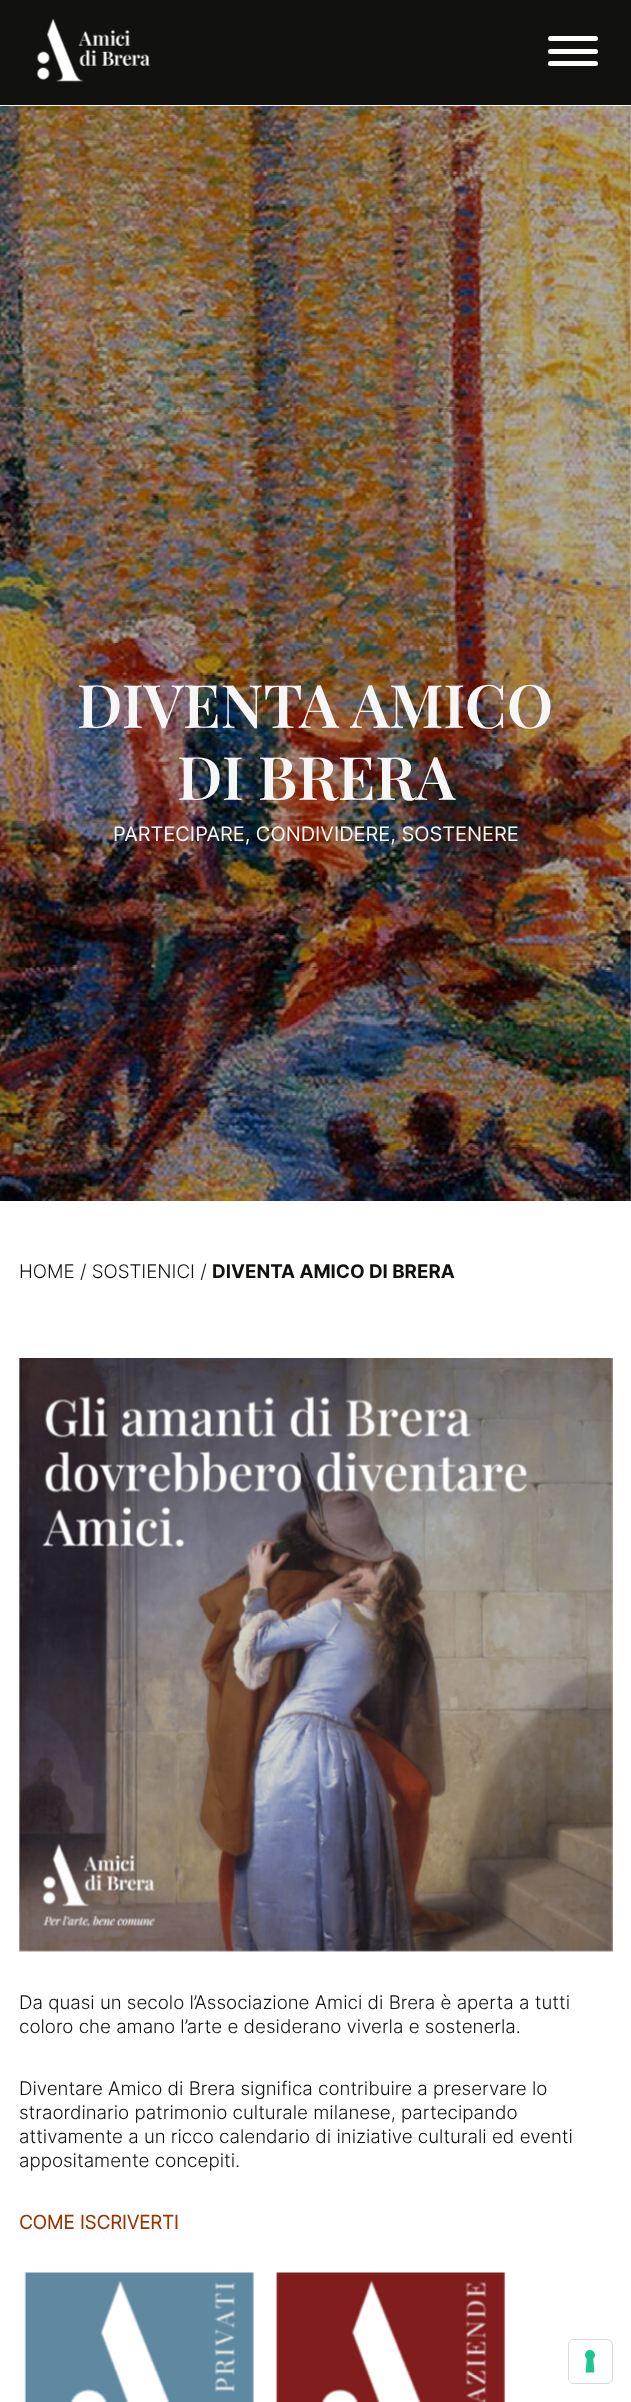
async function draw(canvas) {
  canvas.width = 631
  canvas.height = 2402
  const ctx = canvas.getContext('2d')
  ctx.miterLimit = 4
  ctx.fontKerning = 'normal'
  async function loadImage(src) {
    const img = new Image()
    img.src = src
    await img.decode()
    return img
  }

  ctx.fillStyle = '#fff'
  ctx.fillRect(0, 0, 631, 2402)
  ctx.fillStyle = '#11110f'
  ctx.fillRect(0, 0, 631, 105)
  ctx.fillStyle = '#f7f6f6'
  ctx.fillRect(0, 105, 631, 1)
  ctx.drawImage(await loadImage('image0.png'), 37, 18, 114, 64)
  ctx.fillStyle = '#fff'
  ctx.beginPath()
  ctx.roundRect(548, 61, 50, 5, 2.5)
  ctx.fill()
  ctx.beginPath()
  ctx.roundRect(548, 36, 50, 5, 2.5)
  ctx.fill()
  ctx.beginPath()
  ctx.roundRect(548, 49, 50, 5, 2.5)
  ctx.fill()
  ctx.drawImage(await loadImage('image1.png'), 0, 106, 631, 1095)
  ctx.font = '600 60px Playfair Display'
  ctx.fillStyle = '#f7f6f6'
  ctx.fillText('DIVENTA AMICO', 77, 728)
  ctx.fillText('DI BRERA', 177, 800)
  ctx.font = '20px Inter'
  ctx.fillText('PARTECIPARE, CONDIVIDERE, SOSTENERE', 113, 841)
  ctx.font = '300 18.75px Inter'
  ctx.fillStyle = '#11110f'
  ctx.fillText('HOME / SOSTIENICI /', 19, 1278)
  ctx.font = 'bold 18.75px Inter'
  ctx.fillText('DIVENTA AMICO DI BRERA', 212, 1278)
  ctx.drawImage(await loadImage('image2.png'), 19, 1358, 594, 594)
  ctx.font = '300 18.75px Inter'
  ctx.fillText('Da quasi un secolo l’Associazione Amici di Brera è aperta a tutti', 19, 2009)
  ctx.fillText('coloro che amano l’arte e desiderano viverla e sostenerla.', 19, 2033)
  ctx.fillText('Diventare Amico di Brera significa contribuire a preservare lo', 19, 2095)
  ctx.fillText('straordinario patrimonio culturale milanese, partecipando', 19, 2119)
  ctx.fillText('attivamente a un ricco calendario di iniziative culturali ed eventi', 19, 2143)
  ctx.fillText('appositamente concepiti.', 19, 2167)
  ctx.font = 'bold 18.75px "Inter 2"'
  ctx.fillStyle = '#930'
  ctx.fillText('COME ISCRIVERTI', 19, 2229)
  ctx.drawImage(await loadImage('image3.png'), 24, 2272, 230, 130)
  ctx.drawImage(await loadImage('image4.png'), 275, 2272, 231, 130)
  ctx.beginPath()
  ctx.roundRect(568.5, 2339.5, 44, 44, 5.5)
  ctx.strokeStyle = '#d9d9d9'
  ctx.stroke()
  ctx.fillStyle = '#fff'
  ctx.beginPath()
  ctx.roundRect(569, 2340, 42, 43, 5)
  ctx.fill()
  ctx.drawImage(await loadImage('image5.png'), 585, 2350, 10, 23)
}

draw(document.querySelector('canvas'))
